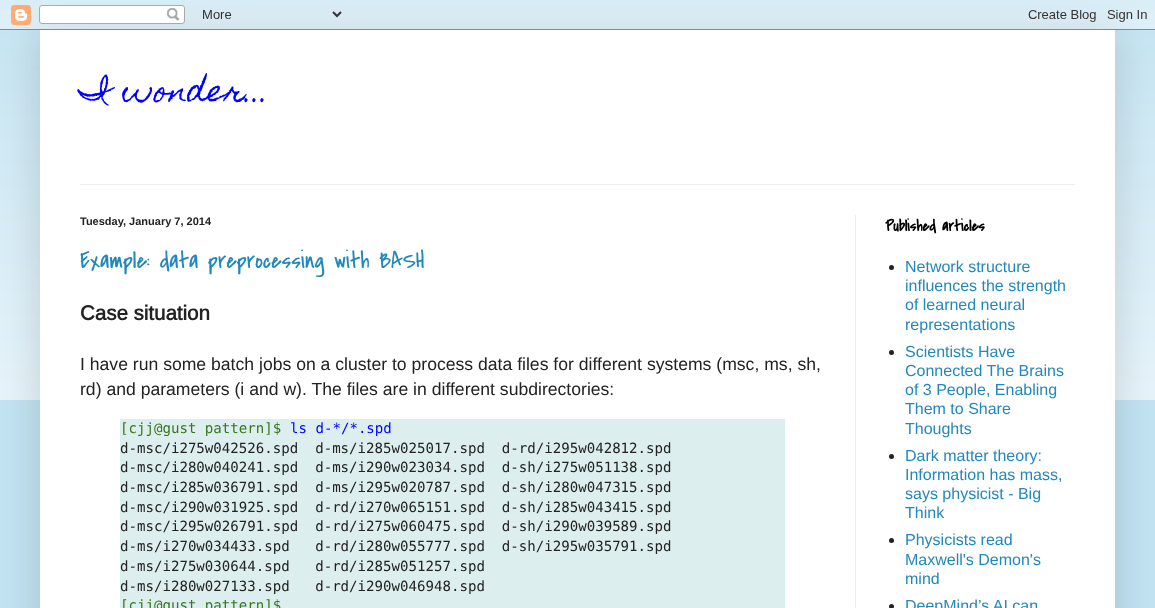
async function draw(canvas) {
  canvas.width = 1155
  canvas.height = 608
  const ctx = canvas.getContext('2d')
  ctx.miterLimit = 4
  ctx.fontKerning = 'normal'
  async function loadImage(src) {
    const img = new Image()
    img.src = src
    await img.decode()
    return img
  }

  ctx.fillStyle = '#c2e3f2'
  ctx.fillRect(0, 0, 1155, 608)
  ctx.drawImage(await loadImage('image1.png'), 0, 10, 1155, 390)
  ctx.fillStyle = '#00000026'
  ctx.filter = 'blur(20px)'
  ctx.beginPath()
  ctx.rect(40, 30, 1075, 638)
  ctx.fill()
  ctx.filter = 'none'
  ctx.drawImage(await loadImage('image0.png'), 0, 0, 1155, 30)
  ctx.fillStyle = '#fff'
  ctx.fillRect(40, 30, 1075, 578)
  ctx.font = '30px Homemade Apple'
  ctx.fillStyle = '#00f'
  ctx.fillText('I wonder...', 80, 101)
  ctx.fillStyle = '#eee'
  ctx.fillRect(80, 184, 995, 1)
  ctx.fillRect(855, 215, 1, 393)
  ctx.font = 'bold 11px Liberation Sans'
  ctx.fillStyle = '#222'
  ctx.fillText('Tuesday, January 7, 2014', 80, 225)
  ctx.font = '24px Covered By Your Grace'
  ctx.fillStyle = '#28b'
  ctx.fillText('Example: data preprocessing with BASH', 80, 268)
  ctx.font = 'bold 20.5px Arimo'
  ctx.fillStyle = '#222'
  ctx.fillText('Case situation', 80, 320)
  ctx.font = '17.6px Arimo'
  ctx.fillText('I have run some batch jobs on a cluster to process data files for different systems (msc, ms, sh,', 80, 370)
  ctx.fillText('rd) and parameters (i and w). The files are in different subdirectories:', 80, 395)
  ctx.fillStyle = '#dee'
  ctx.fillRect(120, 419, 665, 189)
  ctx.font = '14.1px DejaVu Sans Mono'
  ctx.fillStyle = '#38761d'
  ctx.fillText('[cjj@gust pattern]$', 120, 433)
  ctx.fillStyle = '#00f'
  ctx.fillText('ls d-*/*.spd', 290, 433)
  ctx.fillStyle = '#222'
  ctx.fillText('d-msc/i275w042526.spd  d-ms/i285w025017.spd  d-rd/i295w042812.spd', 120, 453)
  ctx.fillText('d-msc/i280w040241.spd  d-ms/i290w023034.spd  d-sh/i275w051138.spd', 120, 472)
  ctx.fillText('d-msc/i285w036791.spd  d-ms/i295w020787.spd  d-sh/i280w047315.spd', 120, 492)
  ctx.fillText('d-msc/i290w031925.spd  d-rd/i270w065151.spd  d-sh/i285w043415.spd', 120, 512)
  ctx.fillText('d-msc/i295w026791.spd  d-rd/i275w060475.spd  d-sh/i290w039589.spd', 120, 531)
  ctx.fillText('d-ms/i270w034433.spd   d-rd/i280w055777.spd  d-sh/i295w035791.spd', 120, 551)
  ctx.fillText('d-ms/i275w030644.spd   d-rd/i285w051257.spd', 120, 571)
  ctx.fillText('d-ms/i280w027133.spd   d-rd/i290w046948.spd', 120, 591)
  ctx.fillStyle = '#38761d'
  ctx.fillText('[cjj@gust pattern]$', 120, 610)
  ctx.font = 'bold 16px Covered By Your Grace'
  ctx.fillStyle = '#000'
  ctx.fillText('Published articles', 885, 231)
  ctx.fillStyle = '#222'
  ctx.beginPath()
  ctx.arc(891.5, 267.5, 2.5, 0, 2 * Math.PI)
  ctx.fill()
  ctx.font = '16px Arimo'
  ctx.fillStyle = '#28b'
  ctx.fillText('Network structure', 905, 272)
  ctx.fillText('influences the strength', 905, 291)
  ctx.fillText('of learned neural', 905, 310)
  ctx.fillText('representations', 905, 330)
  ctx.fillStyle = '#222'
  ctx.beginPath()
  ctx.arc(891.5, 352.5, 2.5, 0, 2 * Math.PI)
  ctx.fill()
  ctx.fillStyle = '#28b'
  ctx.fillText('Scientists Have', 905, 357)
  ctx.fillText('Connected The Brains', 905, 376)
  ctx.fillText('of 3 People, Enabling', 905, 395)
  ctx.fillText('Them to Share', 905, 414)
  ctx.fillText('Thoughts', 905, 434)
  ctx.fillStyle = '#222'
  ctx.beginPath()
  ctx.arc(891.5, 456.5, 2.5, 0, 2 * Math.PI)
  ctx.fill()
  ctx.fillStyle = '#28b'
  ctx.fillText('Dark matter theory:', 905, 461)
  ctx.fillText('Information has mass,', 905, 480)
  ctx.fillText('says physicist - Big', 905, 499)
  ctx.fillText('Think', 905, 518)
  ctx.fillStyle = '#222'
  ctx.beginPath()
  ctx.arc(891.5, 540.5, 2.5, 0, 2 * Math.PI)
  ctx.fill()
  ctx.fillStyle = '#28b'
  ctx.fillText('Physicists read', 905, 545)
  ctx.fillText('Maxwell\'s Demon\'s', 905, 565)
  ctx.fillText('mind', 905, 584)
  ctx.fillStyle = '#222'
  ctx.beginPath()
  ctx.arc(891.5, 606.5, 2.5, 0, 2 * Math.PI)
  ctx.fill()
  ctx.fillStyle = '#28b'
  ctx.fillText('DeepMind’s AI can', 905, 611)
}

draw(document.querySelector('canvas'))
